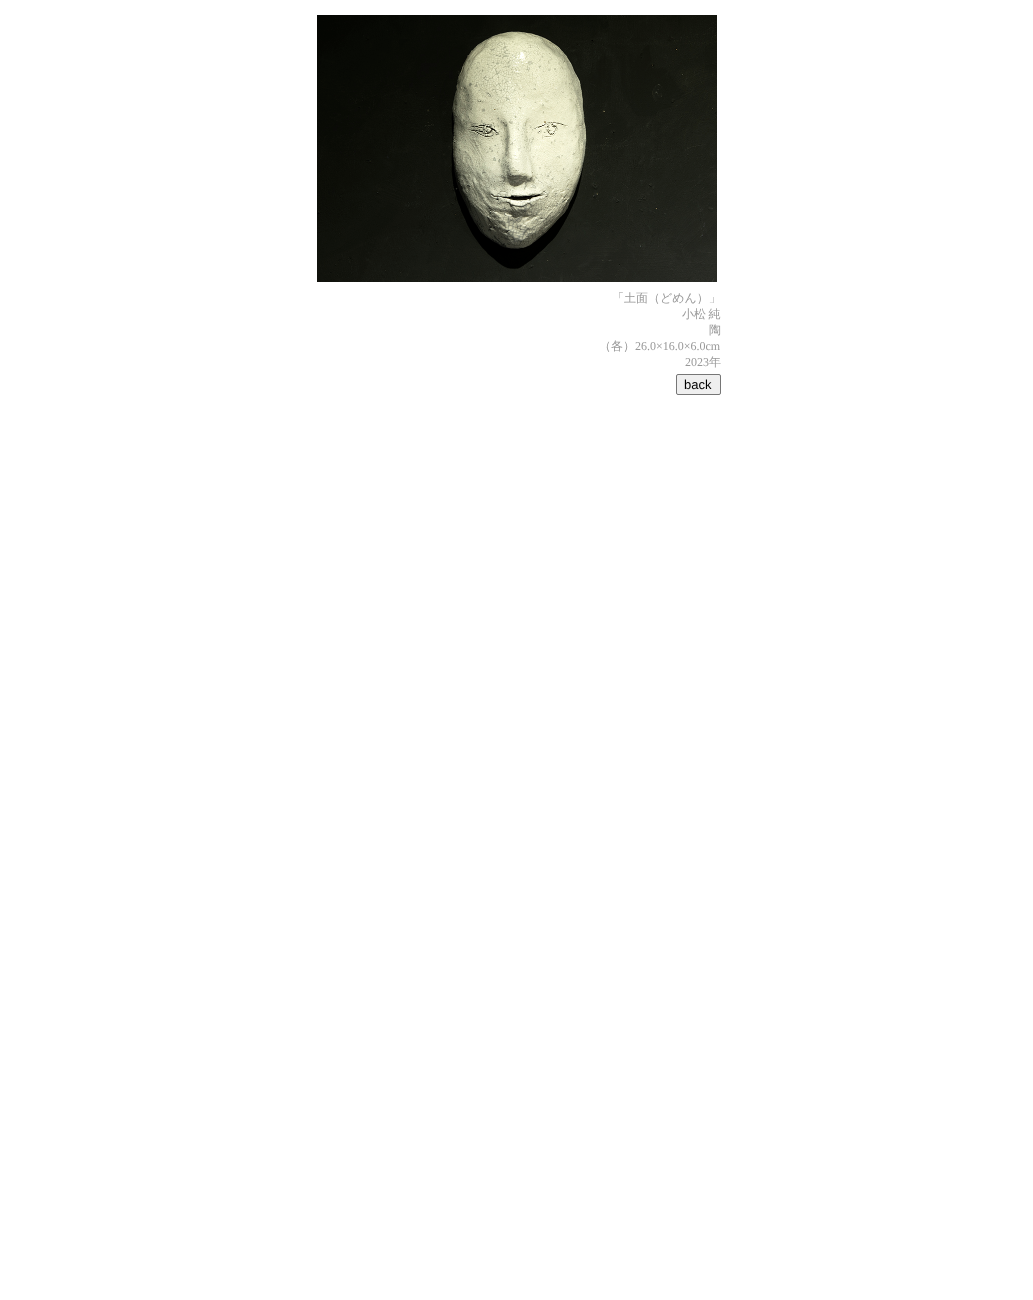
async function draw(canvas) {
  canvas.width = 1033
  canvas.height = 1300
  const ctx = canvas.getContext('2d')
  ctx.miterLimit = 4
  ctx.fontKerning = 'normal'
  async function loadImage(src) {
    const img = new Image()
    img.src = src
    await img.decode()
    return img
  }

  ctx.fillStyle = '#fff'
  ctx.fillRect(0, 0, 1033, 1300)
  ctx.drawImage(await loadImage('image0.png'), 317, 15, 400, 267)
  ctx.font = '500 12px WenQuanYi Zen Hei'
  ctx.fillStyle = '#999'
  ctx.fillText('「土面（どめん）」', 612, 302)
  ctx.wordSpacing = '-1px'
  ctx.fillText('小松 純', 682, 318)
  ctx.wordSpacing = '0px'
  ctx.fillText('陶', 709, 334)
  ctx.fillText('（各）', 599, 350)
  ctx.font = '12px Liberation Serif'
  ctx.fillText('26.0×16.0×6.0cm', 635, 350)
  ctx.fillText('2023', 685, 366)
  ctx.font = '500 12px WenQuanYi Zen Hei'
  ctx.fillText('年', 709, 366)
  ctx.fillStyle = '#efefef'
  ctx.beginPath()
  ctx.roundRect(676.5, 374.5, 44, 20, 1.5)
  ctx.fill()
  ctx.strokeStyle = '#767676'
  ctx.stroke()
  ctx.font = '13px Liberation Sans'
  ctx.fillStyle = '#000'
  ctx.fillText('back', 684, 389)
}

draw(document.querySelector('canvas'))
